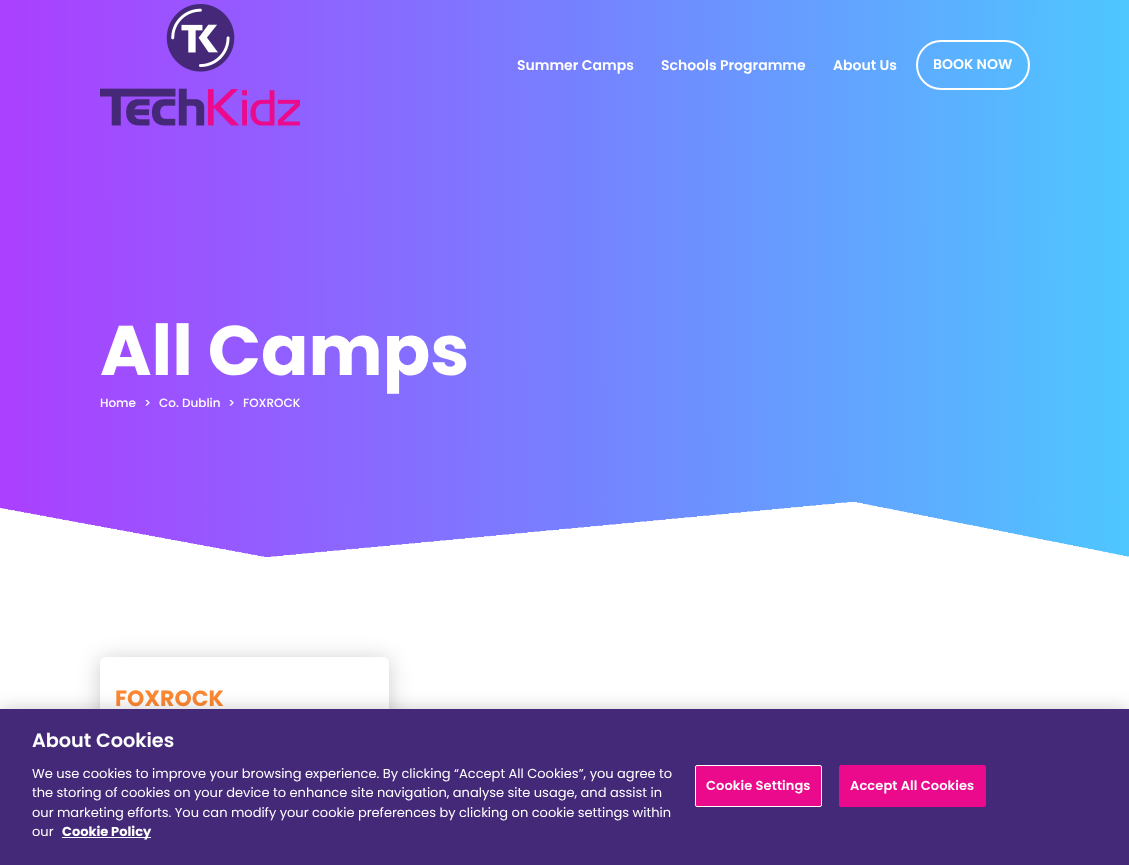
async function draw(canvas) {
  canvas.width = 1129
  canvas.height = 865
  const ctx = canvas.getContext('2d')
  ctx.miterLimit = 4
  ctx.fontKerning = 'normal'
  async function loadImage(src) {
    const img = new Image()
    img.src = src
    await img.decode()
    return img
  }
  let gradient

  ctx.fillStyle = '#fff'
  ctx.fillRect(0, 0, 1129, 865)
  gradient = ctx.createLinearGradient(0, 279, 1129, 278)
  gradient.addColorStop(0, '#ab3fff')
  gradient.addColorStop(0.51, '#7681ff')
  gradient.addColorStop(1, '#4ec7ff')
  ctx.fillStyle = gradient
  ctx.fillRect(0, 0, 1129, 502)
  ctx.drawImage(await loadImage('image0.png'), 100, 4, 200, 122)
  ctx.font = '600 14px Poppins'
  ctx.fillStyle = '#fff'
  ctx.fillText('Summer Camps', 517, 70)
  ctx.fillText('Schools Programme', 661, 70)
  ctx.fillText('About Us', 833, 70)
  ctx.beginPath()
  ctx.roundRect(917, 41, 112, 48, 24)
  ctx.strokeStyle = '#fff'
  ctx.lineWidth = 2
  ctx.stroke()
  ctx.fillText('BOOK NOW', 933, 69)
  ctx.drawImage(await loadImage('image1.png'), 0, 502, 1129, 55)
  ctx.font = 'bold 70px Poppins'
  ctx.fillText('All Camps', 100, 375)
  ctx.font = '500 12px Poppins'
  ctx.fillText('Home', 100, 407)
  ctx.fillText('>', 144, 407)
  ctx.fillText('Co. Dublin', 159, 407)
  ctx.fillText('>', 228, 407)
  ctx.fillText('FOXROCK', 243, 407)
  ctx.save()
  ctx.beginPath()
  ctx.moveTo(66, 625)
  ctx.lineTo(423, 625)
  ctx.lineTo(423, 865)
  ctx.lineTo(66, 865)
  ctx.closePath()
  ctx.moveTo(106, 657)
  ctx.lineTo(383, 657)
  ctx.bezierCurveTo(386.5, 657, 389, 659.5, 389, 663)
  ctx.lineTo(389, 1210)
  ctx.bezierCurveTo(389, 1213.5, 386.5, 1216, 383, 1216)
  ctx.lineTo(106, 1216)
  ctx.bezierCurveTo(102.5, 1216, 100, 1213.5, 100, 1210)
  ctx.lineTo(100, 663)
  ctx.bezierCurveTo(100, 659.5, 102.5, 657, 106, 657)
  ctx.closePath()
  ctx.clip('evenodd')
  ctx.fillStyle = '#00000033'
  ctx.filter = 'blur(11px)'
  ctx.beginPath()
  ctx.roundRect(100, 659, 289, 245, 6)
  ctx.fill()
  ctx.filter = 'none'
  ctx.restore()
  ctx.font = 'bold 22px Poppins'
  ctx.fillStyle = '#fc8833'
  ctx.fillText('FOXROCK', 115, 706)
  ctx.fillStyle = '#00000033'
  ctx.filter = 'blur(9px)'
  ctx.beginPath()
  ctx.rect(0, 709, 1129, 156)
  ctx.fill()
  ctx.filter = 'none'
  ctx.fillStyle = '#452979'
  ctx.fillRect(0, 709, 1129, 156)
  ctx.font = '600 19.25px Poppins'
  ctx.fillStyle = '#fff'
  ctx.fillText('About Cookies', 32, 747)
  ctx.font = '13px Poppins'
  ctx.fillText('We use cookies to improve your browsing experience. By clicking “Accept All Cookies”, you agree to', 32, 778)
  ctx.fillText('the storing of cookies on your device to enhance site navigation, analyse site usage, and assist in', 32, 797)
  ctx.fillText('our marketing efforts. You can modify your cookie preferences by clicking on cookie settings within', 32, 817)
  ctx.fillText('our', 32, 836)
  ctx.fillRect(62, 837, 89, 1)
  ctx.font = 'bold 13px Poppins'
  ctx.fillText('Cookie Policy', 62, 836)
  ctx.fillStyle = '#ea0a8b'
  ctx.beginPath()
  ctx.roundRect(695.5, 765.5, 126, 41, 1.5)
  ctx.fill()
  ctx.lineWidth = 1
  ctx.stroke()
  ctx.letterSpacing = '0.1px'
  ctx.font = '600 13px Poppins'
  ctx.fillStyle = '#fff'
  ctx.fillText('Cookie Settings', 706, 790)
  ctx.fillStyle = '#ea0a8b'
  ctx.beginPath()
  ctx.roundRect(839.5, 765.5, 146, 41, 1.5)
  ctx.fill()
  ctx.strokeStyle = '#ea0a8b'
  ctx.stroke()
  ctx.fillStyle = '#fff'
  ctx.fillText('Accept All Cookies', 850, 790)
}

draw(document.querySelector('canvas'))
